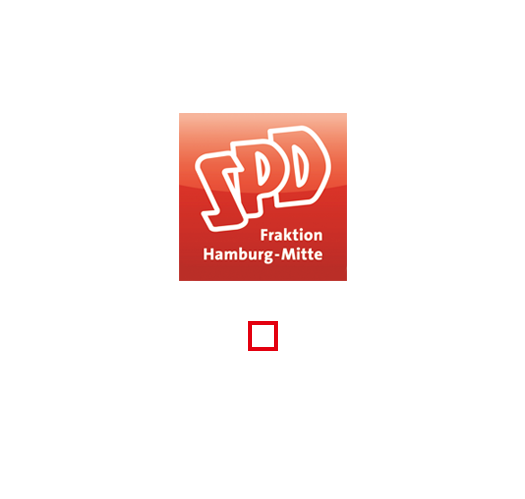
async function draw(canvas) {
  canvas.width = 525
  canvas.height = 499
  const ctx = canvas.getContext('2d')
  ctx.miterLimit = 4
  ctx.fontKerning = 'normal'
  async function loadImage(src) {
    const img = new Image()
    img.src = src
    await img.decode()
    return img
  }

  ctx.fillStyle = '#fff'
  ctx.fillRect(0, 0, 525, 499)
  ctx.drawImage(await loadImage('image0.png'), 179, 113, 168, 168)
  ctx.strokeStyle = '#e3000f'
  ctx.lineWidth = 4
  ctx.strokeRect(250, 323, 26, 26)
}

draw(document.querySelector('canvas'))
